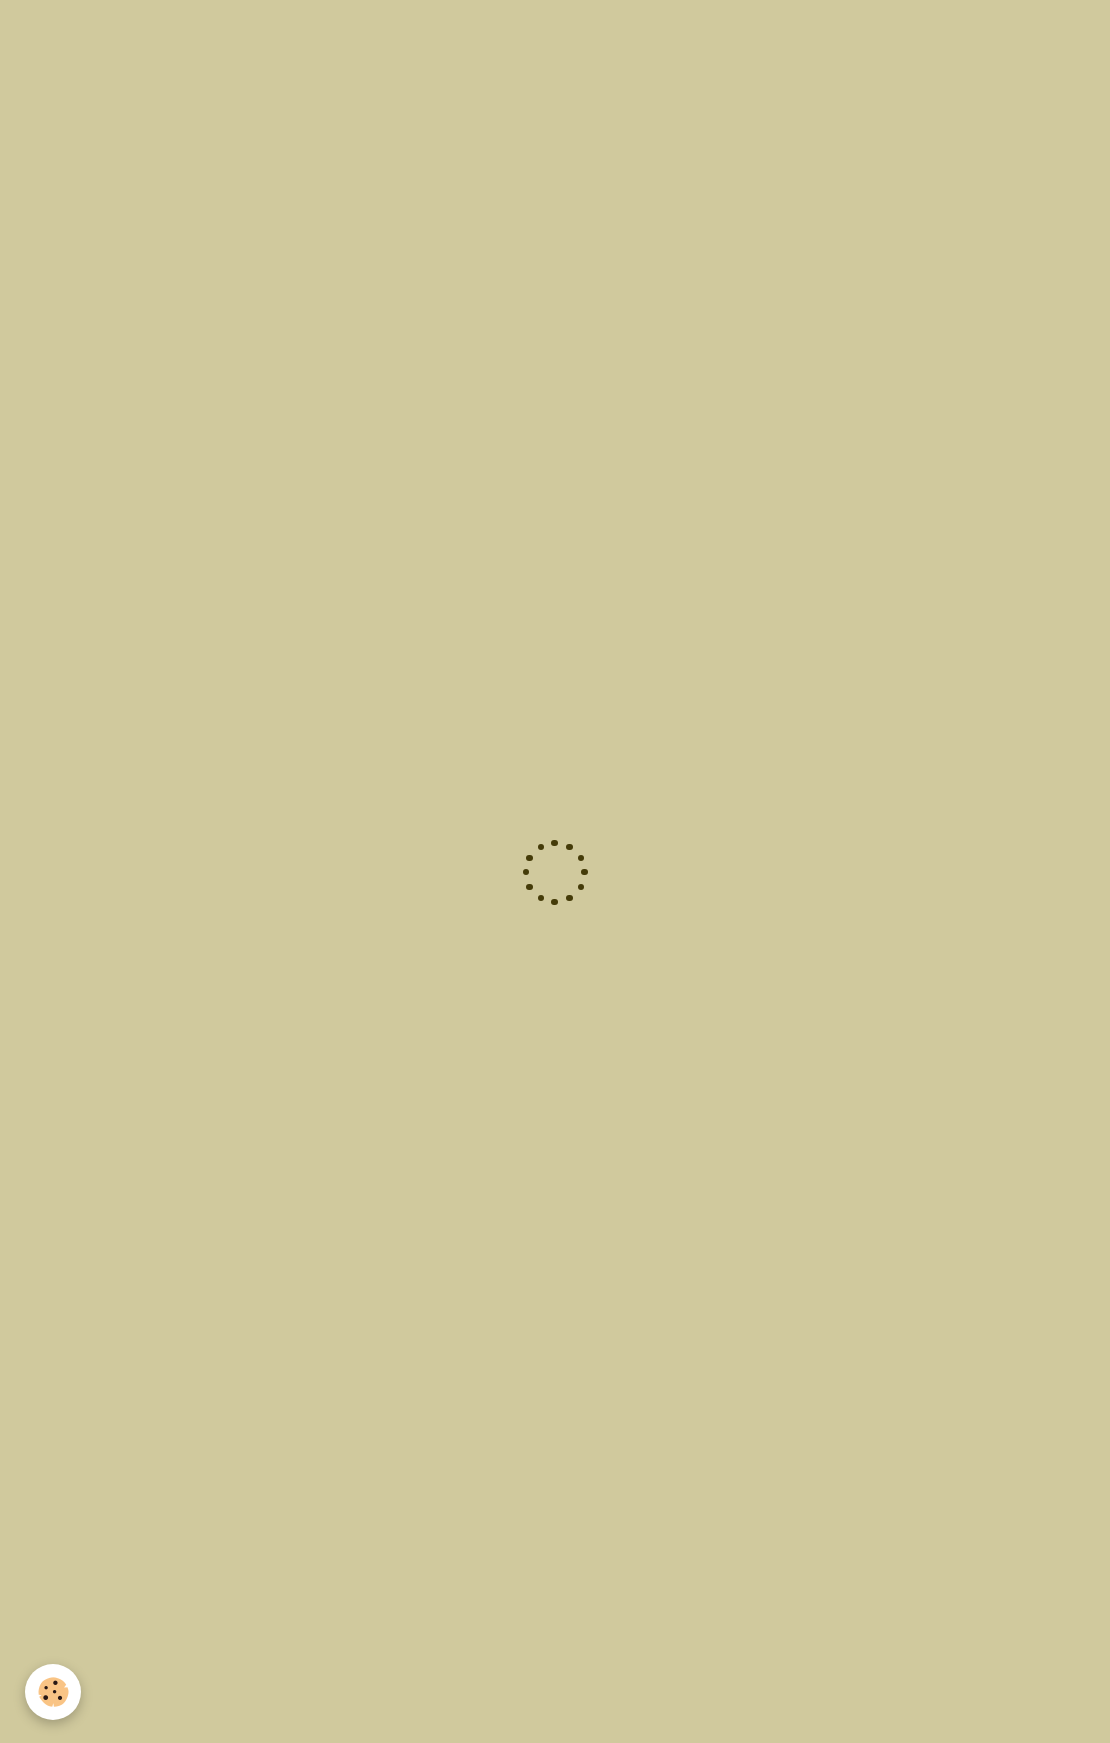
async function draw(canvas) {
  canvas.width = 1110
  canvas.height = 1743
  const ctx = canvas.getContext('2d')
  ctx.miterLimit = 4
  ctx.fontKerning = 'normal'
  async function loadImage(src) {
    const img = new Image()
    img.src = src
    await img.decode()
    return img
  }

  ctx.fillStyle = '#d0c99d'
  ctx.fillRect(0, 0, 1110, 1743)
  ctx.fillStyle = '#443b09'
  ctx.beginPath()
  ctx.roundRect(551, 840, 7, 6, 3)
  ctx.fill()
  ctx.beginPath()
  ctx.arc(541, 847, 3, 0, 2 * Math.PI)
  ctx.fill()
  ctx.beginPath()
  ctx.roundRect(566, 844, 7, 6, 3)
  ctx.fill()
  ctx.beginPath()
  ctx.roundRect(526, 855, 7, 6, 3)
  ctx.fill()
  ctx.beginPath()
  ctx.arc(581, 858, 3, 0, 2 * Math.PI)
  ctx.fill()
  ctx.beginPath()
  ctx.arc(526, 872, 3, 0, 2 * Math.PI)
  ctx.fill()
  ctx.beginPath()
  ctx.roundRect(581, 869, 7, 6, 3)
  ctx.fill()
  ctx.beginPath()
  ctx.roundRect(526, 884, 7, 6, 3)
  ctx.fill()
  ctx.beginPath()
  ctx.arc(581, 887, 3, 0, 2 * Math.PI)
  ctx.fill()
  ctx.beginPath()
  ctx.arc(541, 898, 3, 0, 2 * Math.PI)
  ctx.fill()
  ctx.beginPath()
  ctx.roundRect(566, 895, 7, 6, 3)
  ctx.fill()
  ctx.beginPath()
  ctx.roundRect(551, 899, 7, 6, 3)
  ctx.fill()
  ctx.fillStyle = '#0000003d'
  ctx.filter = 'blur(6px)'
  ctx.beginPath()
  ctx.roundRect(25, 1668, 56, 56, 28)
  ctx.fill()
  ctx.filter = 'none'
  ctx.fillStyle = '#fff'
  ctx.beginPath()
  ctx.arc(53, 1692, 28, 0, 2 * Math.PI)
  ctx.fill()
  ctx.drawImage(await loadImage('image0.png'), 38, 1677, 31, 30)
}

draw(document.querySelector('canvas'))
